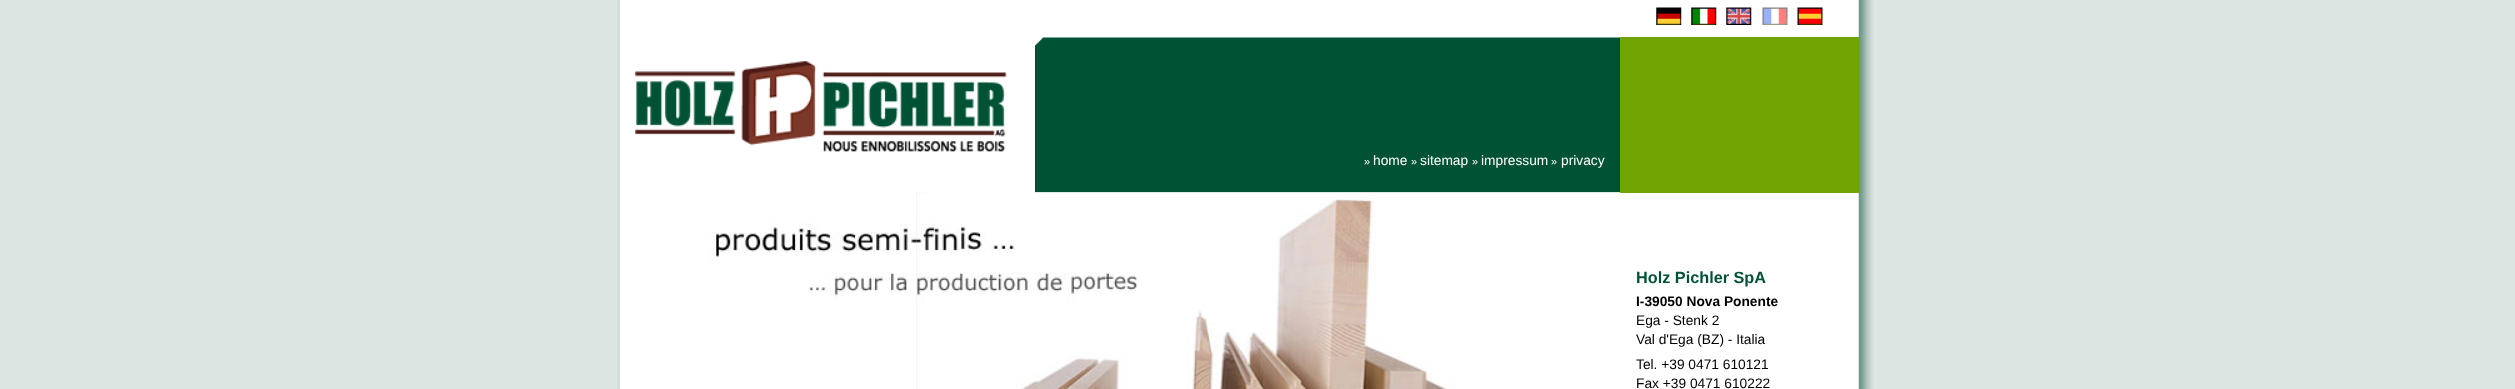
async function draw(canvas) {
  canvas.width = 2515
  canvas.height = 389
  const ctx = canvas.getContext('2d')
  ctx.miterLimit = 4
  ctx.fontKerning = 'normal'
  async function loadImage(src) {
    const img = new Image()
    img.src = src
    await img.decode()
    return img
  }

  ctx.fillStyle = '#dde5e2'
  ctx.fillRect(0, 0, 2515, 389)
  ctx.fillStyle = '#d4dfda'
  ctx.fillRect(617, 0, 3, 389)
  ctx.fillStyle = '#fff'
  ctx.fillRect(620, 0, 1239, 389)
  ctx.drawImage(await loadImage('image0.png'), 1656, 7, 26, 18)
  ctx.drawImage(await loadImage('image1.png'), 1691, 7, 26, 18)
  ctx.drawImage(await loadImage('image2.png'), 1726, 7, 26, 18)
  ctx.drawImage(await loadImage('image3.png'), 1762, 7, 26, 18)
  ctx.drawImage(await loadImage('image4.png'), 1797, 7, 26, 18)
  ctx.drawImage(await loadImage('image6.png'), 1035, 37, 585, 156)
  ctx.drawImage(await loadImage('image8.png'), 916, 192, 704, 197)
  ctx.drawImage(await loadImage('image5.png'), 634, 61, 373, 132)
  ctx.font = '11px Liberation Sans'
  ctx.fillText('»', 1364, 165)
  ctx.font = '13.75px Liberation Sans'
  ctx.fillText('home', 1373, 165)
  ctx.font = '11px Liberation Sans'
  ctx.fillText('»', 1411, 165)
  ctx.font = '13.75px Liberation Sans'
  ctx.fillText('sitemap', 1420, 165)
  ctx.font = '11px Liberation Sans'
  ctx.fillText('»', 1472, 165)
  ctx.font = '13.75px Liberation Sans'
  ctx.fillText('impressum', 1481, 165)
  ctx.font = '11px Liberation Sans'
  ctx.fillText('»', 1551, 165)
  ctx.font = '13.75px Liberation Sans'
  ctx.fillText('privacy', 1561, 165)
  ctx.drawImage(await loadImage('image10.png'), 1858, 0, 16, 389)
  ctx.fillStyle = '#6fa401'
  ctx.fillRect(1620, 37, 239, 156)
  ctx.drawImage(await loadImage('image7.png'), 679, 193, 238, 196)
  ctx.drawImage(await loadImage('image9.png'), 916, 192, 704, 197)
  ctx.font = 'bold 16.25px Liberation Sans'
  ctx.fillStyle = '#005234'
  ctx.fillText('Holz Pichler SpA', 1636, 283)
  ctx.font = 'bold 13.75px Liberation Sans'
  ctx.fillStyle = '#000'
  ctx.fillText('I-39050 Nova Ponente', 1636, 306)
  ctx.font = '13.75px Liberation Sans'
  ctx.fillText('Ega - Stenk 2', 1636, 325)
  ctx.fillText('Val d\'Ega (BZ) - Italia', 1636, 344)
  ctx.fillText('Tel. +39 0471 610121', 1636, 369)
  ctx.fillText('Fax +39 0471 610222', 1636, 388)
}

draw(document.querySelector('canvas'))
